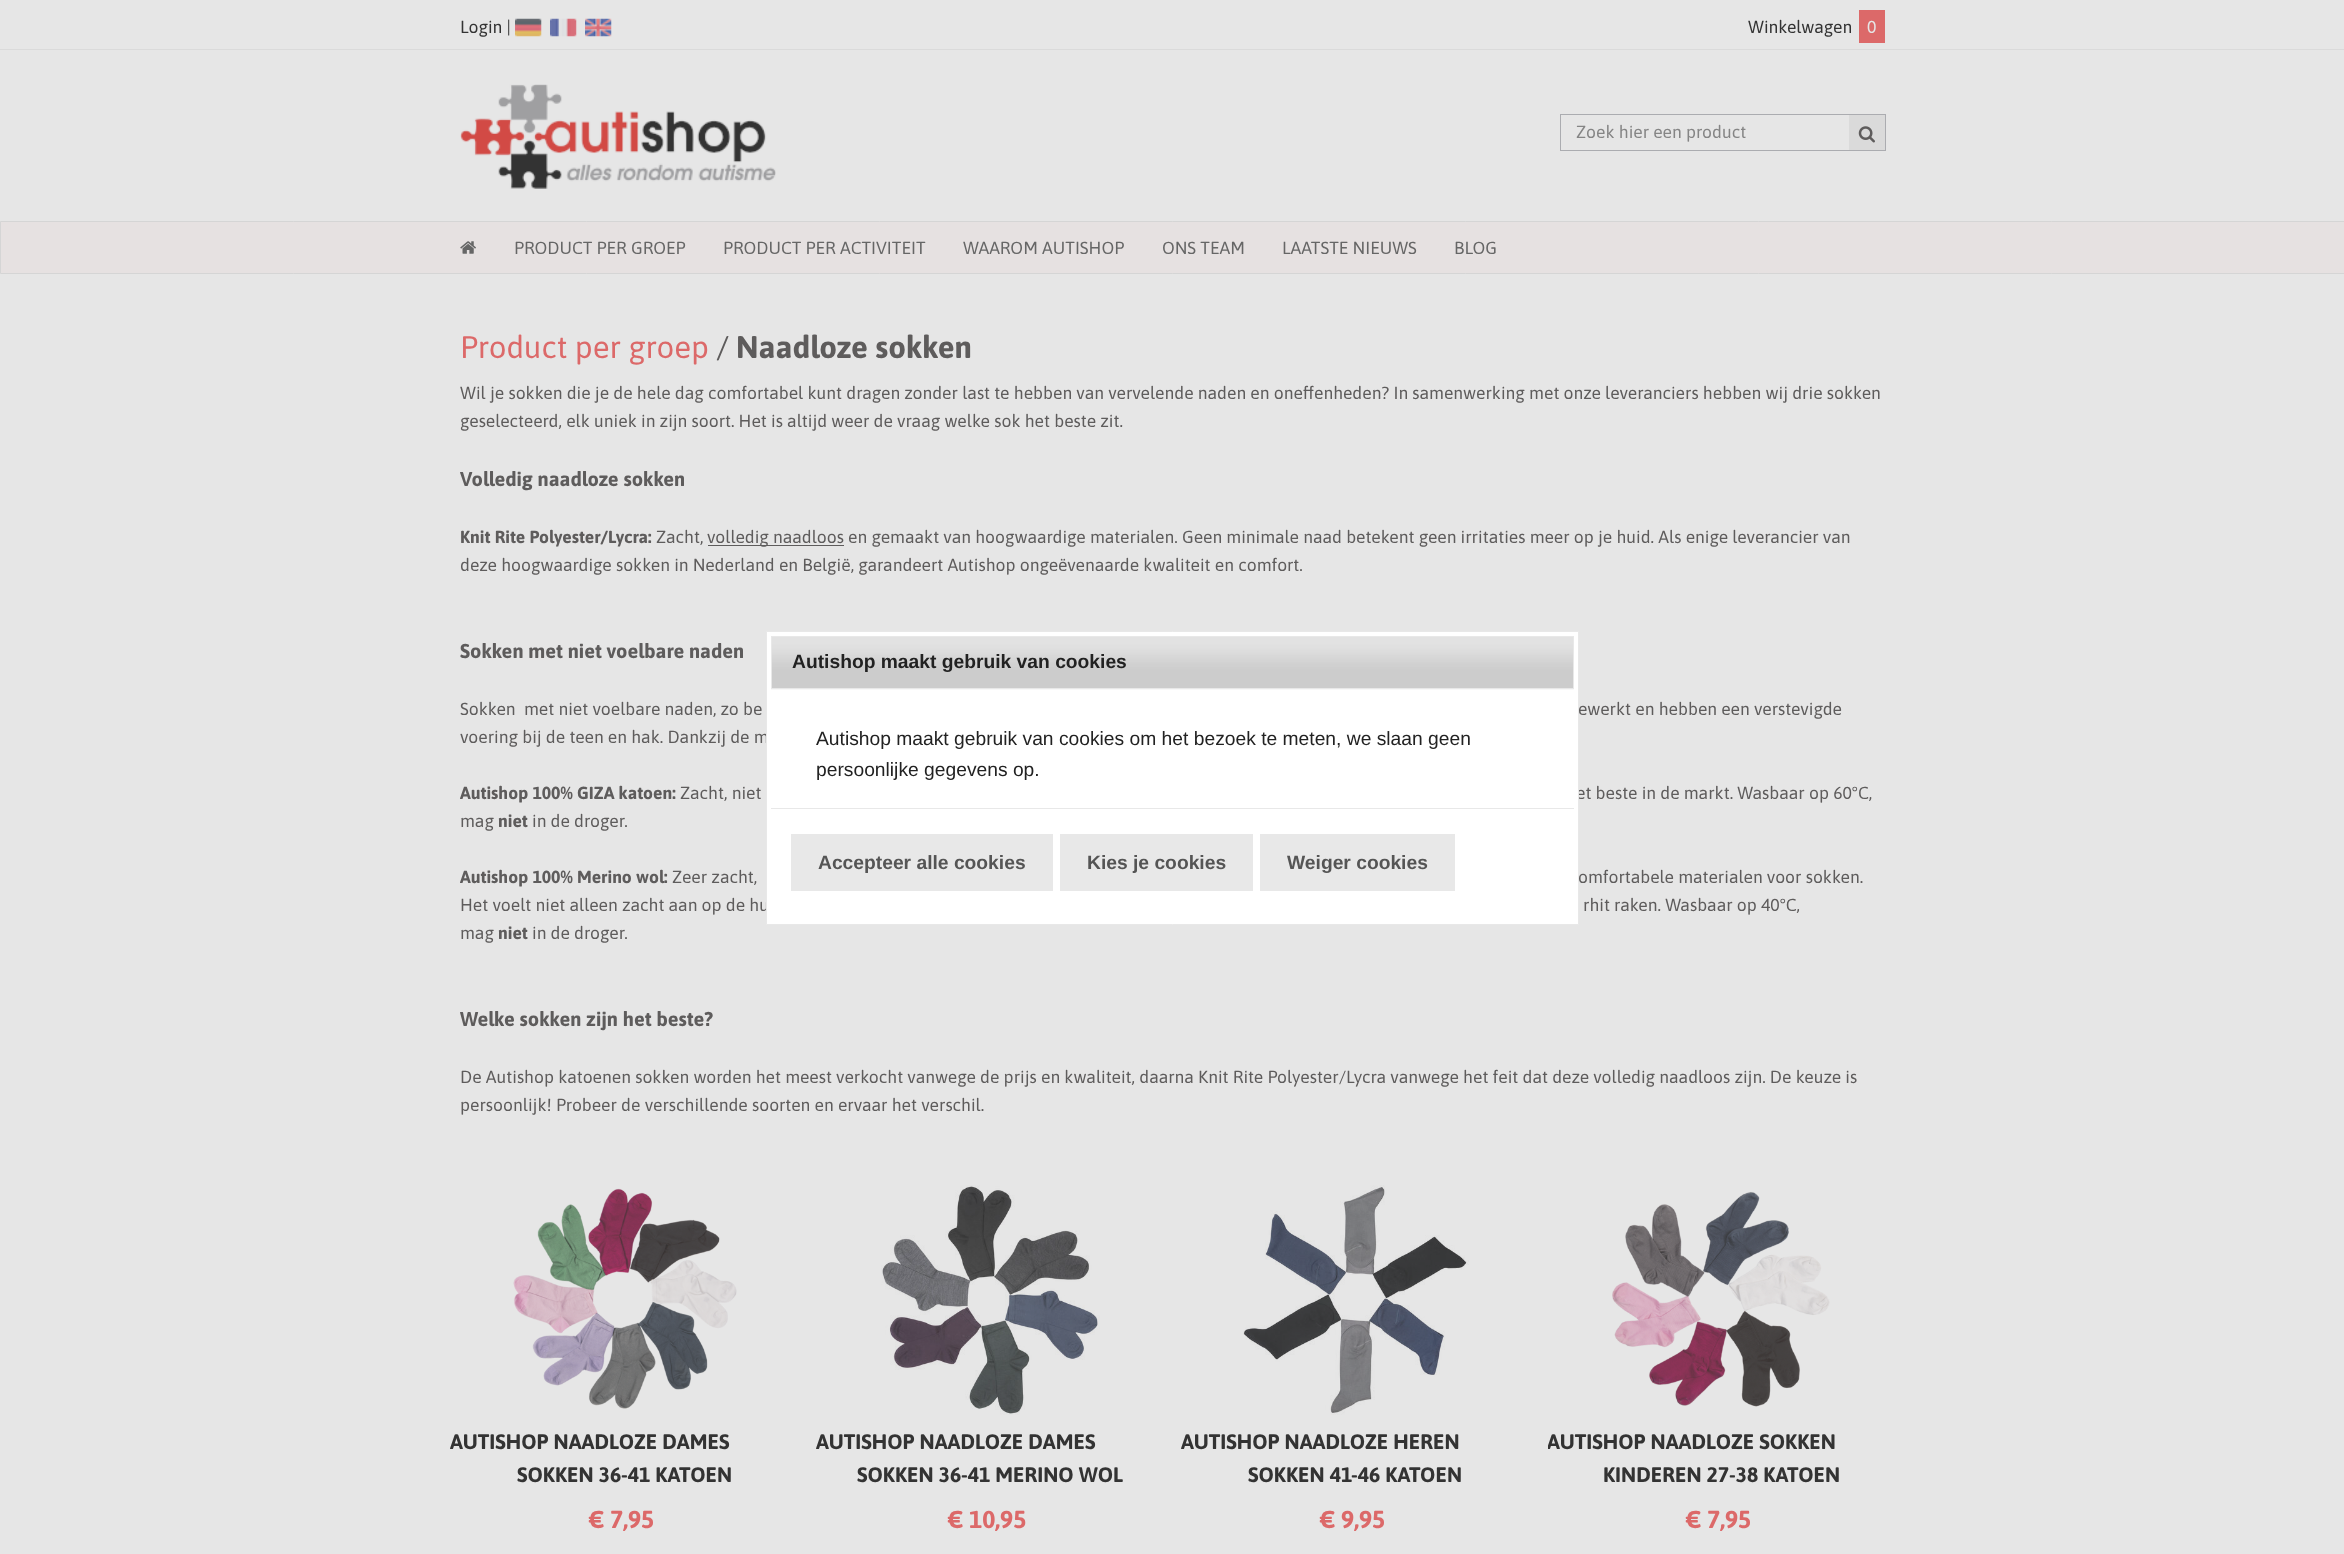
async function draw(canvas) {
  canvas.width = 2344
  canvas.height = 1554
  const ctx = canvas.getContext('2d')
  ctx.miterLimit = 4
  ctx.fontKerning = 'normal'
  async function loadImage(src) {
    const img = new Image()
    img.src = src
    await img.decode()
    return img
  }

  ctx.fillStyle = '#e6e6e6'
  ctx.fillRect(0, 0, 2344, 1554)
  ctx.fillStyle = '#dadada'
  ctx.fillRect(0, 49, 2344, 1)
  ctx.font = '17.5px Asap'
  ctx.fillStyle = '#333'
  ctx.fillText('Login |', 460, 33)
  ctx.drawImage(await loadImage('image0.png'), 515, 18, 27, 19)
  ctx.drawImage(await loadImage('image1.png'), 550, 18, 27, 19)
  ctx.drawImage(await loadImage('image2.png'), 585, 18, 27, 19)
  ctx.fillText('Winkelwagen', 1748, 33)
  ctx.fillStyle = '#dc6969'
  ctx.fillRect(1859, 10, 26, 33)
  ctx.fillStyle = '#e6e6e6'
  ctx.fillText('0', 1867, 33)
  ctx.drawImage(await loadImage('image3.png'), 460, 84, 316, 105)
  ctx.strokeStyle = '#abacb0'
  ctx.strokeRect(1560.5, 114.5, 324, 36)
  ctx.fillStyle = '#858585'
  ctx.fillText('Zoek hier een product', 1576, 138)
  ctx.fillStyle = '#dadada'
  ctx.fillRect(1849, 115, 36, 35)
  ctx.fillStyle = '#abacb0'
  ctx.fillRect(1885, 114, 1, 37)
  ctx.drawImage(await loadImage('image4.png'), 1858, 126, 17, 17)
  ctx.fillStyle = '#e6e1e1'
  ctx.beginPath()
  ctx.rect(0.5, 221.5, 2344, 52)
  ctx.fill()
  ctx.strokeStyle = '#d5d5d5'
  ctx.stroke()
  ctx.drawImage(await loadImage('image5.png'), 460, 241, 16, 13)
  ctx.fillStyle = '#666'
  ctx.fillText('PRODUCT PER GROEP', 514, 254)
  ctx.fillText('PRODUCT PER ACTIVITEIT', 723, 254)
  ctx.fillText('WAAROM AUTISHOP', 963, 254)
  ctx.fillText('ONS TEAM', 1162, 254)
  ctx.fillText('LAATSTE NIEUWS', 1282, 254)
  ctx.fillText('BLOG', 1454, 254)
  ctx.font = '31.25px Asap'
  ctx.fillStyle = '#dc6969'
  ctx.fillText('Product per groep', 460, 358)
  ctx.fillStyle = '#5e5c5c'
  ctx.fillText('/', 716, 358)
  ctx.font = 'bold 31.25px Asap'
  ctx.fillText('Naadloze sokken', 736, 358)
  ctx.font = '17.5px Asap'
  ctx.fillText('Wil je sokken die je de hele dag comfortabel kunt dragen zonder last te hebben van vervelende naden en oneffenheden? In samenwerking met onze leveranciers hebben wij drie sokken', 460, 399)
  ctx.fillText('geselecteerd, elk uniek in zijn soort. Het is altijd weer de vraag welke sok het beste zit.', 460, 427)
  ctx.font = 'bold 20px Asap'
  ctx.fillText('Volledig naadloze sokken', 460, 486)
  ctx.font = 'bold 17.5px Asap'
  ctx.fillText('Knit Rite Polyester/Lycra:', 460, 543)
  ctx.font = '17.5px Asap'
  ctx.fillText('Zacht,', 656, 543)
  ctx.fillRect(708, 545, 136, 1)
  ctx.fillText('volledig naadloos en gemaakt van hoogwaardige materialen. Geen minimale naad betekent geen irritaties meer op je huid. Als enige leverancier van', 707, 543)
  ctx.fillText('deze hoogwaardige sokken in Nederland en België, garandeert Autishop ongeëvenaarde kwaliteit en comfort.', 460, 571)
  ctx.font = 'bold 20px Asap'
  ctx.fillText('Sokken met niet voelbare naden', 460, 658)
  ctx.font = '17.5px Asap'
  ctx.fillText('Sokken  met niet voelbare naden, zo be', 460, 715)
  ctx.fillText('ewerkt en hebben een verstevigde', 1578, 715)
  ctx.fillText('voering bij de teen en hak. Dankzij de m', 460, 743)
  ctx.font = 'bold 17.5px Asap'
  ctx.fillText('Autishop 100% GIZA katoen:', 460, 799)
  ctx.font = '17.5px Asap'
  ctx.fillText('Zacht, niet', 680, 799)
  ctx.fillText('et beste in de markt. Wasbaar op 60°C,', 1576, 799)
  ctx.fillText('mag', 460, 827)
  ctx.font = 'bold 17.5px Asap'
  ctx.fillText('niet', 498, 827)
  ctx.font = '17.5px Asap'
  ctx.fillText('in de droger.', 532, 827)
  ctx.font = 'bold 17.5px Asap'
  ctx.fillText('Autishop 100% Merino wol:', 460, 883)
  ctx.font = '17.5px Asap'
  ctx.fillText('Zeer zacht,', 672, 883)
  ctx.fillText('omfortabele materialen voor sokken.', 1578, 883)
  ctx.fillText('Het voelt niet alleen zacht aan op de hu', 460, 911)
  ctx.fillText('rhit raken. Wasbaar op 40°C,', 1583, 911)
  ctx.fillText('mag', 460, 939)
  ctx.font = 'bold 17.5px Asap'
  ctx.fillText('niet', 498, 939)
  ctx.font = '17.5px Asap'
  ctx.fillText('in de droger.', 532, 939)
  ctx.font = 'bold 20px Asap'
  ctx.fillText('Welke sokken zijn het beste?', 460, 1026)
  ctx.font = '17.5px Asap'
  ctx.fillText('De Autishop katoenen sokken worden het meest verkocht vanwege de prijs en kwaliteit, daarna Knit Rite Polyester/Lycra vanwege het feit dat deze volledig naadloos zijn. De keuze is', 460, 1083)
  ctx.fillText('persoonlijk! Probeer de verschillende soorten en ervaar het verschil.', 460, 1111)
  ctx.drawImage(await loadImage('image6.png'), 513, 1188, 224, 221)
  ctx.font = 'bold 21px Asap'
  ctx.fillStyle = '#333'
  ctx.fillText('AUTISHOP NAADLOZE DAMES', 450, 1449)
  ctx.fillText('SOKKEN 36-41 KATOEN', 517, 1482)
  ctx.font = 'bold 24.5px Asap'
  ctx.fillStyle = '#dc6969'
  ctx.fillText('€ 7,95', 589, 1528)
  ctx.drawImage(await loadImage('image7.png'), 881, 1185, 219, 230)
  ctx.font = 'bold 21px Asap'
  ctx.fillStyle = '#333'
  ctx.fillText('AUTISHOP NAADLOZE DAMES', 816, 1449)
  ctx.fillText('SOKKEN 36-41 MERINO WOL', 857, 1482)
  ctx.font = 'bold 24.5px Asap'
  ctx.fillStyle = '#dc6969'
  ctx.fillText('€ 10,95', 948, 1528)
  ctx.drawImage(await loadImage('image8.png'), 1243, 1185, 226, 230)
  ctx.font = 'bold 21px Asap'
  ctx.fillStyle = '#333'
  ctx.fillText('AUTISHOP NAADLOZE HEREN', 1181, 1449)
  ctx.fillText('SOKKEN 41-46 KATOEN', 1248, 1482)
  ctx.font = 'bold 24.5px Asap'
  ctx.fillStyle = '#dc6969'
  ctx.fillText('€ 9,95', 1320, 1528)
  ctx.drawImage(await loadImage('image9.png'), 1612, 1191, 218, 216)
  ctx.save()
  ctx.beginPath()
  ctx.rect(1548, 1425, 347, 63)
  ctx.clip()
  ctx.font = 'bold 21px Asap'
  ctx.fillStyle = '#333'
  ctx.fillText('AUTISHOP NAADLOZE SOKKEN', 1547, 1449)
  ctx.restore()
  ctx.font = 'bold 21px Asap'
  ctx.fillStyle = '#333'
  ctx.fillText('KINDEREN 27-38 KATOEN', 1603, 1482)
  ctx.font = 'bold 24.5px Asap'
  ctx.fillStyle = '#dc6969'
  ctx.fillText('€ 7,95', 1686, 1528)
  ctx.fillStyle = '#fff'
  ctx.beginPath()
  ctx.rect(766.5, 631.5, 812, 293)
  ctx.fill()
  ctx.strokeStyle = '#e8e8e8'
  ctx.stroke()
  ctx.drawImage(await loadImage('image10.png'), 771, 637, 803, 53)
  ctx.strokeRect(771.5, 636.5, 802, 52)
  ctx.font = 'bold 19.25px Liberation Sans'
  ctx.fillStyle = '#222'
  ctx.fillText('Autishop maakt gebruik van cookies', 792, 668)
  ctx.font = '19.25px Liberation Sans'
  ctx.fillText('Autishop maakt gebruik van cookies om het bezoek te meten, we slaan geen', 816, 745)
  ctx.fillText('persoonlijke gegevens op.', 816, 776)
  ctx.fillStyle = '#e8e8e8'
  ctx.fillRect(771, 808, 803, 1)
  ctx.fillRect(791, 834, 262, 57)
  ctx.font = 'bold 19.25px Liberation Sans'
  ctx.fillStyle = '#555'
  ctx.fillText('Accepteer alle cookies', 818, 869)
  ctx.fillStyle = '#e8e8e8'
  ctx.fillRect(1060, 834, 193, 57)
  ctx.fillStyle = '#555'
  ctx.fillText('Kies je cookies', 1087, 869)
  ctx.fillStyle = '#e8e8e8'
  ctx.fillRect(1260, 834, 195, 57)
  ctx.fillStyle = '#555'
  ctx.fillText('Weiger cookies', 1287, 869)
}

draw(document.querySelector('canvas'))
